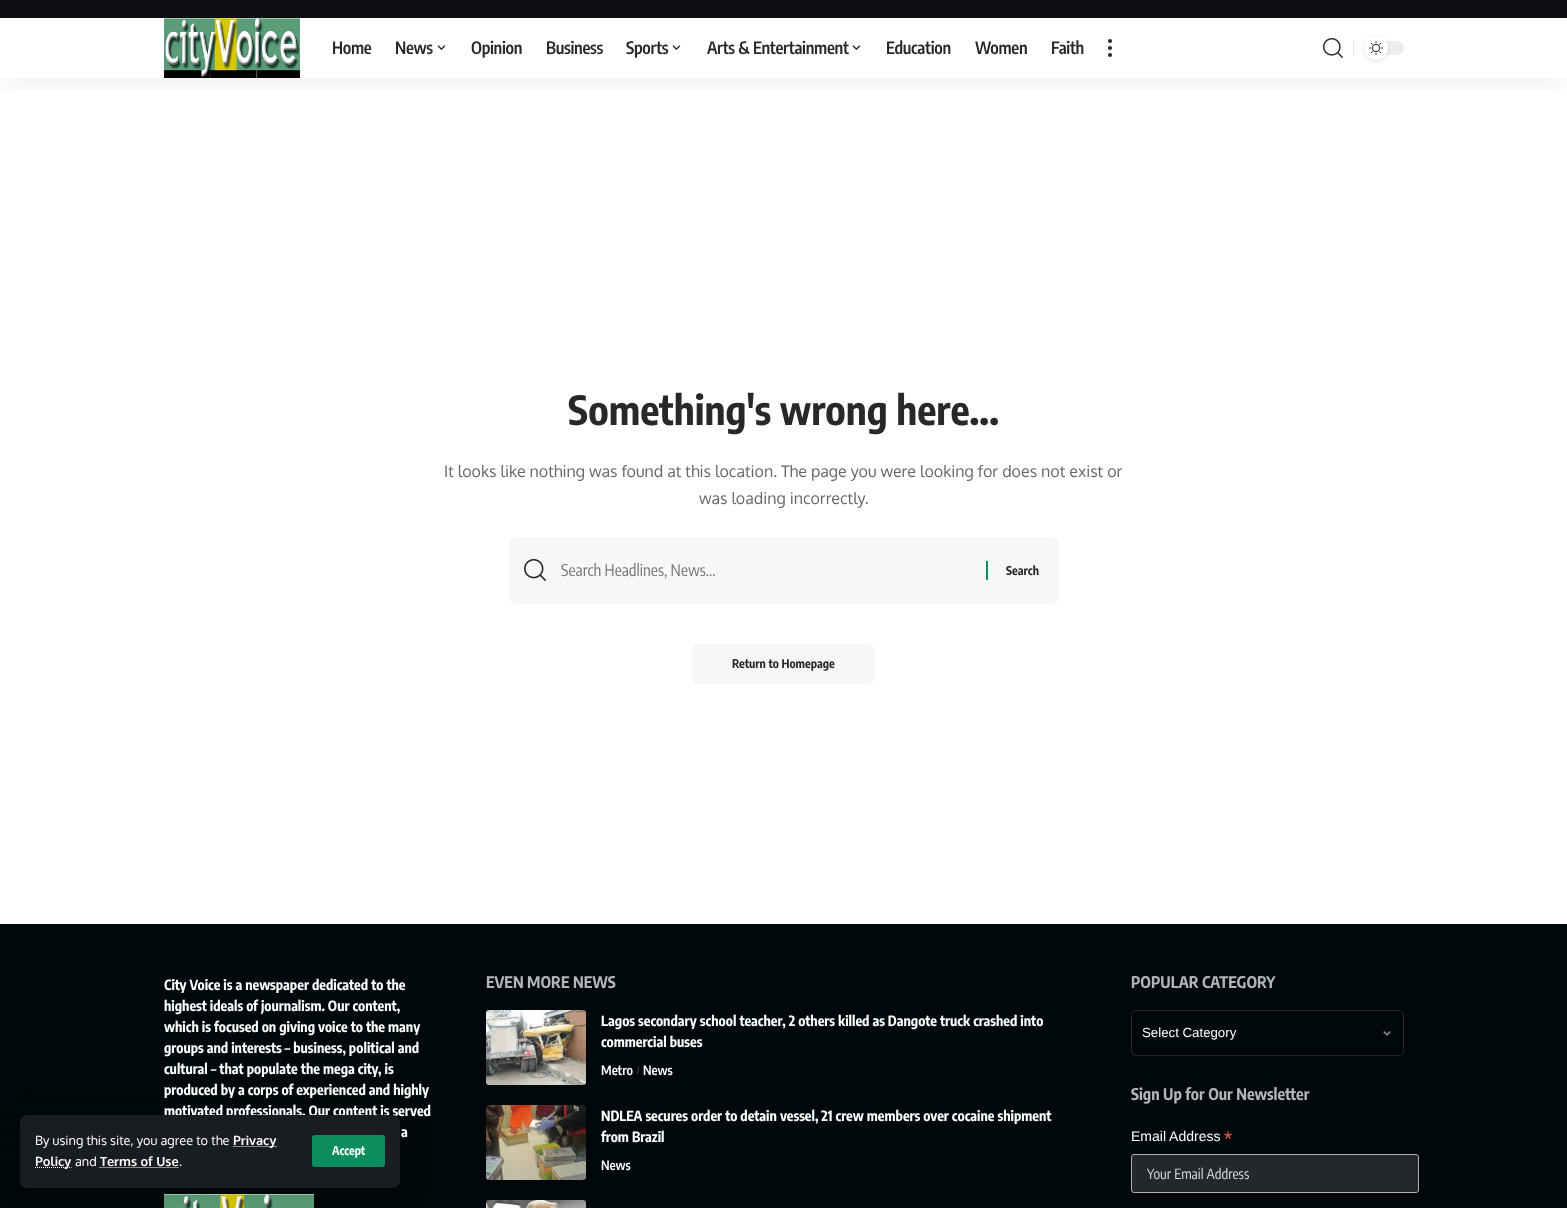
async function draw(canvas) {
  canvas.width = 1567
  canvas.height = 1208
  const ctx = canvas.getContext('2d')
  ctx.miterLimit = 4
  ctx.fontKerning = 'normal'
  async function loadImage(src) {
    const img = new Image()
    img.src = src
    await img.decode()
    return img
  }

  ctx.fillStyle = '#fff'
  ctx.fillRect(0, 0, 1567, 1208)
  ctx.fillStyle = '#0e0f12'
  ctx.fillRect(0, 0, 1567, 18)
  ctx.save()
  ctx.beginPath()
  ctx.rect(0, 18, 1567, 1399)
  ctx.clip()
  ctx.beginPath()
  ctx.rect(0, 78, 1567, 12)
  ctx.clip()
  ctx.fillStyle = '#00000012'
  ctx.filter = 'blur(15px)'
  ctx.beginPath()
  ctx.rect(0, 22, 1567, 60)
  ctx.fill()
  ctx.filter = 'none'
  ctx.restore()
  ctx.drawImage(await loadImage('image0.png'), 164, 18, 136, 60)
  ctx.letterSpacing = '-0.3px'
  ctx.font = '600 17px Encode Sans Condensed'
  ctx.fillStyle = '#282828'
  ctx.fillText('Home', 332, 54)
  ctx.fillText('News', 395, 54)
  ctx.drawImage(await loadImage('image1.png'), 437, 45, 9, 5)
  ctx.fillText('Opinion', 471, 54)
  ctx.fillText('Business', 546, 54)
  ctx.fillText('Sports', 626, 54)
  ctx.drawImage(await loadImage('image1.png'), 672, 45, 9, 5)
  ctx.fillText('Arts & Entertainment', 707, 54)
  ctx.drawImage(await loadImage('image1.png'), 852, 45, 9, 5)
  ctx.fillText('Education', 886, 54)
  ctx.fillText('Women', 975, 54)
  ctx.fillText('Faith', 1051, 54)
  ctx.beginPath()
  ctx.arc(1110, 41, 2, 0, 2 * Math.PI)
  ctx.fill()
  ctx.beginPath()
  ctx.arc(1110, 48, 2, 0, 2 * Math.PI)
  ctx.fill()
  ctx.beginPath()
  ctx.arc(1110, 55, 2, 0, 2 * Math.PI)
  ctx.fill()
  ctx.drawImage(await loadImage('image2.png'), 1323, 38, 20, 20)
  ctx.fillStyle = '#e4e4e4'
  ctx.fillRect(1353, 41, 1, 14)
  ctx.fillStyle = '#ededed'
  ctx.beginPath()
  ctx.roundRect(1364, 41, 40, 14, 7)
  ctx.fill()
  ctx.fillStyle = '#0000001f'
  ctx.filter = 'blur(2px)'
  ctx.beginPath()
  ctx.roundRect(1364, 37, 24, 24, 12)
  ctx.fill()
  ctx.filter = 'none'
  ctx.fillStyle = '#fff'
  ctx.beginPath()
  ctx.arc(1376, 48, 12, 0, 2 * Math.PI)
  ctx.fill()
  ctx.drawImage(await loadImage('image3.png'), 1369, 41, 14, 14)
  ctx.fillStyle = '#00080c'
  ctx.fillRect(0, 924, 1567, 284)
  ctx.beginPath()
  ctx.moveTo(8, 1076)
  ctx.lineTo(312.2, 1076)
  ctx.strokeStyle = '#080e12'
  ctx.lineWidth = 1.5
  ctx.lineCap = 'round'
  ctx.setLineDash([0, 16])
  ctx.stroke()
  ctx.beginPath()
  ctx.moveTo(8, 1092)
  ctx.lineTo(312.2, 1092)
  ctx.stroke()
  ctx.beginPath()
  ctx.moveTo(8, 1108)
  ctx.lineTo(312.2, 1108)
  ctx.stroke()
  ctx.beginPath()
  ctx.moveTo(8, 1124)
  ctx.lineTo(312.2, 1124)
  ctx.stroke()
  ctx.beginPath()
  ctx.moveTo(8, 1140)
  ctx.lineTo(312.2, 1140)
  ctx.stroke()
  ctx.beginPath()
  ctx.moveTo(8, 1156)
  ctx.lineTo(312.2, 1156)
  ctx.stroke()
  ctx.drawImage(await loadImage('image5.png'), 164, 1194, 150, 14)
  ctx.fillStyle = '#0000001f'
  ctx.filter = 'blur(15px)'
  ctx.beginPath()
  ctx.roundRect(20, 1119, 380, 73, 7)
  ctx.fill()
  ctx.filter = 'none'
  ctx.letterSpacing = '0px'
  ctx.font = 'bold 14px Encode Sans Condensed'
  ctx.fillStyle = '#fff'
  ctx.fillText('motivated professionals. Our content is served', 164, 1116)
  ctx.fillStyle = '#191c20'
  ctx.beginPath()
  ctx.roundRect(20, 1115, 380, 73, 7)
  ctx.fill()
  ctx.font = '12.75px Oxygen'
  ctx.fillStyle = '#fff'
  ctx.fillText('By using this site, you agree to the', 35, 1145)
  ctx.beginPath()
  ctx.moveTo(233.5, 1146.5)
  ctx.lineTo(277, 1146.5)
  ctx.strokeStyle = '#fff'
  ctx.lineWidth = 1
  ctx.lineCap = 'butt'
  ctx.setLineDash([1, 1])
  ctx.stroke()
  ctx.font = 'bold 12.75px Oxygen'
  ctx.fillText('Privacy', 233, 1145)
  ctx.beginPath()
  ctx.moveTo(35, 1167.5)
  ctx.lineTo(71.5, 1167.5)
  ctx.stroke()
  ctx.fillText('Policy', 35, 1166)
  ctx.font = '12.75px Oxygen'
  ctx.fillText('and', 75, 1166)
  ctx.font = 'bold 12.75px Oxygen'
  ctx.fillText('Terms of Use', 100, 1166)
  ctx.beginPath()
  ctx.moveTo(99.5, 1167.5)
  ctx.lineTo(178.5, 1167.5)
  ctx.stroke()
  ctx.font = '12.75px Oxygen'
  ctx.fillText('.', 179, 1166)
  ctx.fillStyle = '#0b8d5d'
  ctx.beginPath()
  ctx.roundRect(312, 1135, 73, 32, 3)
  ctx.fill()
  ctx.font = 'bold 12px Encode Sans Condensed'
  ctx.fillStyle = '#fff'
  ctx.fillText('Accept', 332, 1155)
  ctx.font = 'bold 40px Encode Sans Condensed'
  ctx.fillStyle = '#282828'
  ctx.fillText('Something\'s wrong here...', 568, 425)
  ctx.font = '16px Oxygen'
  ctx.fillStyle = '#666'
  ctx.fillText('It looks like nothing was found at this location. The page you were looking for does not exist or', 444, 477)
  ctx.fillText('was loading incorrectly.', 699, 504)
  ctx.fillStyle = '#f7f7f7'
  ctx.beginPath()
  ctx.roundRect(509, 537, 550, 67, 7)
  ctx.fill()
  ctx.drawImage(await loadImage('image4.png'), 524, 558, 22, 23)
  ctx.font = '16px Encode Sans Condensed'
  ctx.fillStyle = '#757575'
  ctx.fillText('Search Headlines, News...', 561, 576)
  ctx.fillStyle = '#0b8d5d'
  ctx.fillRect(986, 561, 2, 19)
  ctx.font = 'bold 12px Encode Sans Condensed'
  ctx.fillStyle = '#282828'
  ctx.fillText('Search', 1006, 575)
  ctx.fillStyle = '#f7f7f7'
  ctx.beginPath()
  ctx.roundRect(692, 644, 183, 40, 7)
  ctx.fill()
  ctx.fillStyle = '#282828'
  ctx.fillText('Return to Homepage', 732, 668)
  ctx.beginPath()
  ctx.moveTo(8, 932)
  ctx.lineTo(312.2, 932)
  ctx.strokeStyle = '#080e12'
  ctx.lineWidth = 1.5
  ctx.lineCap = 'round'
  ctx.setLineDash([0, 16])
  ctx.stroke()
  ctx.beginPath()
  ctx.moveTo(8, 948)
  ctx.lineTo(312.2, 948)
  ctx.stroke()
  ctx.beginPath()
  ctx.moveTo(8, 964)
  ctx.lineTo(312.2, 964)
  ctx.stroke()
  ctx.beginPath()
  ctx.moveTo(8, 980)
  ctx.lineTo(312.2, 980)
  ctx.stroke()
  ctx.beginPath()
  ctx.moveTo(8, 996)
  ctx.lineTo(312.2, 996)
  ctx.stroke()
  ctx.beginPath()
  ctx.moveTo(8, 1012)
  ctx.lineTo(312.2, 1012)
  ctx.stroke()
  ctx.beginPath()
  ctx.moveTo(8, 1028)
  ctx.lineTo(312.2, 1028)
  ctx.stroke()
  ctx.beginPath()
  ctx.moveTo(8, 1044)
  ctx.lineTo(312.2, 1044)
  ctx.stroke()
  ctx.beginPath()
  ctx.moveTo(8, 1060)
  ctx.lineTo(312.2, 1060)
  ctx.stroke()
  ctx.font = 'bold 14px Encode Sans Condensed'
  ctx.fillStyle = '#fff'
  ctx.fillText('City Voice is a newspaper dedicated to the', 164, 990)
  ctx.fillText('highest ideals of journalism. Our content,', 164, 1011)
  ctx.fillText('which is focused on giving voice to the many', 164, 1032)
  ctx.fillText('groups and interests – business, political and', 164, 1053)
  ctx.fillText('cultural – that populate the mega city, is', 164, 1074)
  ctx.fillText('produced by a corps of experienced and highly', 164, 1095)
  ctx.fillText('a', 401, 1137)
  ctx.font = 'bold 16px Encode Sans Condensed'
  ctx.fillStyle = '#b3b5b6'
  ctx.fillText('EVEN MORE NEWS', 486, 988)
  ctx.drawImage(await loadImage('image6.png'), 486, 1010, 100, 75)
  ctx.font = 'bold 14px Encode Sans Condensed'
  ctx.fillStyle = '#fff'
  ctx.fillText('Lagos secondary school teacher, 2 others killed as Dangote truck crashed into', 601, 1026)
  ctx.fillText('commercial buses', 601, 1047)
  ctx.font = '600 13px Encode Sans Condensed'
  ctx.fillText('Metro', 601, 1075)
  ctx.fillStyle = '#383e41'
  ctx.beginPath()
  ctx.moveTo(638.5, 1066.5)
  ctx.lineTo(639.5, 1066.5)
  ctx.lineTo(637.5, 1074.5)
  ctx.lineTo(636.5, 1074.5)
  ctx.closePath()
  ctx.fill()
  ctx.fillStyle = '#fff'
  ctx.fillText('News', 643, 1075)
  ctx.drawImage(await loadImage('image7.png'), 486, 1105, 100, 75)
  ctx.font = 'bold 14px Encode Sans Condensed'
  ctx.fillText('NDLEA secures order to detain vessel, 21 crew members over cocaine shipment', 601, 1121)
  ctx.fillText('from Brazil', 601, 1142)
  ctx.font = '600 13px Encode Sans Condensed'
  ctx.fillText('News', 601, 1170)
  ctx.drawImage(await loadImage('image8.png'), 486, 1200, 100, 8)
  ctx.font = 'bold 16px Encode Sans Condensed'
  ctx.fillStyle = '#b3b5b6'
  ctx.fillText('POPULAR CATEGORY', 1131, 988)
  ctx.drawImage(await loadImage('image9.png'), 1383, 1031, 8, 5)
  ctx.beginPath()
  ctx.roundRect(1131.5, 1010.5, 272, 45, 4.5)
  ctx.strokeStyle = '#22282b'
  ctx.lineWidth = 1
  ctx.setLineDash([])
  ctx.stroke()
  ctx.font = '13.25px Liberation Sans'
  ctx.fillStyle = '#fff'
  ctx.fillText('Select Category', 1142, 1037)
  ctx.font = 'bold 16px Encode Sans Condensed'
  ctx.fillStyle = '#b3b5b6'
  ctx.fillText('Sign Up for Our Newsletter', 1131, 1100)
  ctx.font = '14px Liberation Sans'
  ctx.fillStyle = '#fff'
  ctx.fillText('Email Address', 1131, 1141)
  ctx.font = '21px Liberation Sans'
  ctx.fillStyle = '#e85c41'
  ctx.fillText('*', 1224, 1146)
  ctx.fillStyle = '#22282b'
  ctx.beginPath()
  ctx.roundRect(1131.5, 1154.5, 287, 38, 2.5)
  ctx.fill()
  ctx.strokeStyle = '#abb0b2'
  ctx.stroke()
  ctx.font = '14px Encode Sans Condensed'
  ctx.fillStyle = '#ddd'
  ctx.fillText('Your Email Address', 1147, 1179)
}

draw(document.querySelector('canvas'))
